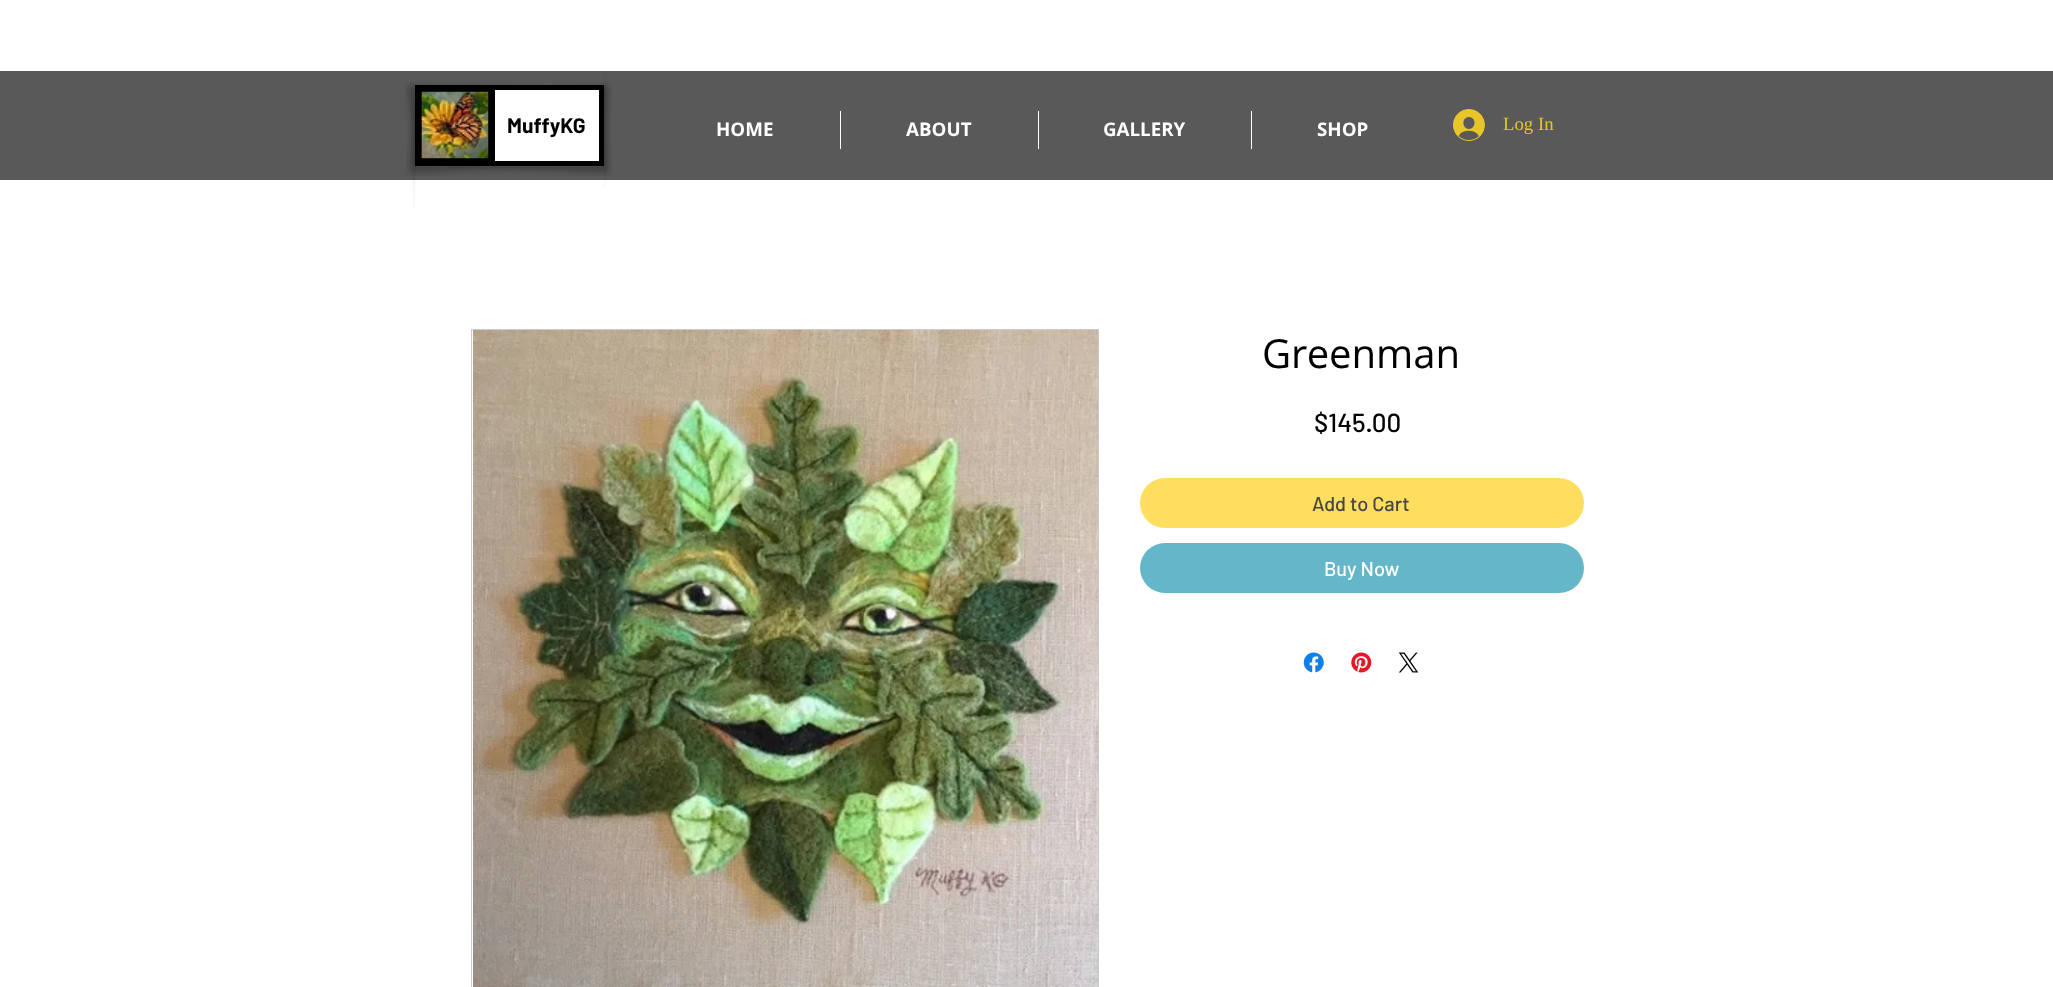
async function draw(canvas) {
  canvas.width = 2053
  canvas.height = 987
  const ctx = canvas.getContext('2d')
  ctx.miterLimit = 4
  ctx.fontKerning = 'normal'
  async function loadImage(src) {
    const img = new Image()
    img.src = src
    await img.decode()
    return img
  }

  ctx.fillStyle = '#fff'
  ctx.fillRect(0, 0, 2053, 987)
  ctx.fillStyle = '#595959'
  ctx.fillRect(0, 71, 2053, 109)
  ctx.drawImage(await loadImage('image1.png'), 405, 82, 138, 126)
  ctx.drawImage(await loadImage('image2.png'), 552, 82, 60, 106)
  ctx.drawImage(await loadImage('image3.png'), 406, 101, 143, 75)
  ctx.drawImage(await loadImage('image0.png'), 449, 72, 163, 104)
  ctx.fillStyle = '#fff'
  ctx.fillRect(495, 90, 104, 71)
  ctx.strokeStyle = '#000'
  ctx.lineWidth = 5
  ctx.strokeRect(417.5, 87.5, 184, 76)
  ctx.fillStyle = '#000'
  ctx.fillRect(420, 90, 75, 71)
  ctx.drawImage(await loadImage('image4.png'), 421, 91, 68, 68)
  ctx.font = 'bold 21px Barlow'
  ctx.fillText('MuffyKG', 507, 133)
  ctx.font = 'bold 18.75px Open Sans'
  ctx.fillStyle = '#fff'
  ctx.fillText('HOME', 716, 136)
  ctx.fillRect(840, 111, 1, 38)
  ctx.fillText('ABOUT', 906, 136)
  ctx.fillRect(1038, 111, 1, 38)
  ctx.fillText('GALLERY', 1103, 136)
  ctx.fillRect(1251, 111, 1, 38)
  ctx.fillText('SHOP', 1317, 136)
  ctx.drawImage(await loadImage('image5.png'), 1453, 109, 32, 32)
  ctx.font = '18.75px Liberation Serif'
  ctx.fillStyle = '#e8c529'
  ctx.fillText('Log In', 1503, 130)
  ctx.strokeStyle = '#cacaca'
  ctx.lineWidth = 1
  ctx.strokeRect(471.5, 329.5, 627, 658)
  ctx.drawImage(await loadImage('image6.png'), 473, 330, 625, 657)
  ctx.font = '40px Open Sans'
  ctx.fillStyle = '#000'
  ctx.fillText('Greenman', 1262, 368)
  ctx.font = '500 26px Barlow'
  ctx.fillText('$145.00', 1314, 432)
  ctx.fillStyle = '#ffde5f'
  ctx.beginPath()
  ctx.roundRect(1140, 478, 444, 50, 25)
  ctx.fill()
  ctx.font = '500 20px Barlow'
  ctx.fillStyle = '#464646'
  ctx.fillText('Add to Cart', 1312, 511)
  ctx.fillStyle = '#63b7c9'
  ctx.beginPath()
  ctx.roundRect(1140, 543, 444, 50, 25)
  ctx.fill()
  ctx.fillStyle = '#fff'
  ctx.fillText('Buy Now', 1324, 576)
  ctx.drawImage(await loadImage('image7.png'), 1303, 652, 21, 21)
  ctx.drawImage(await loadImage('image8.png'), 1351, 652, 21, 21)
  ctx.drawImage(await loadImage('image9.png'), 1398, 652, 21, 21)
}

draw(document.querySelector('canvas'))
